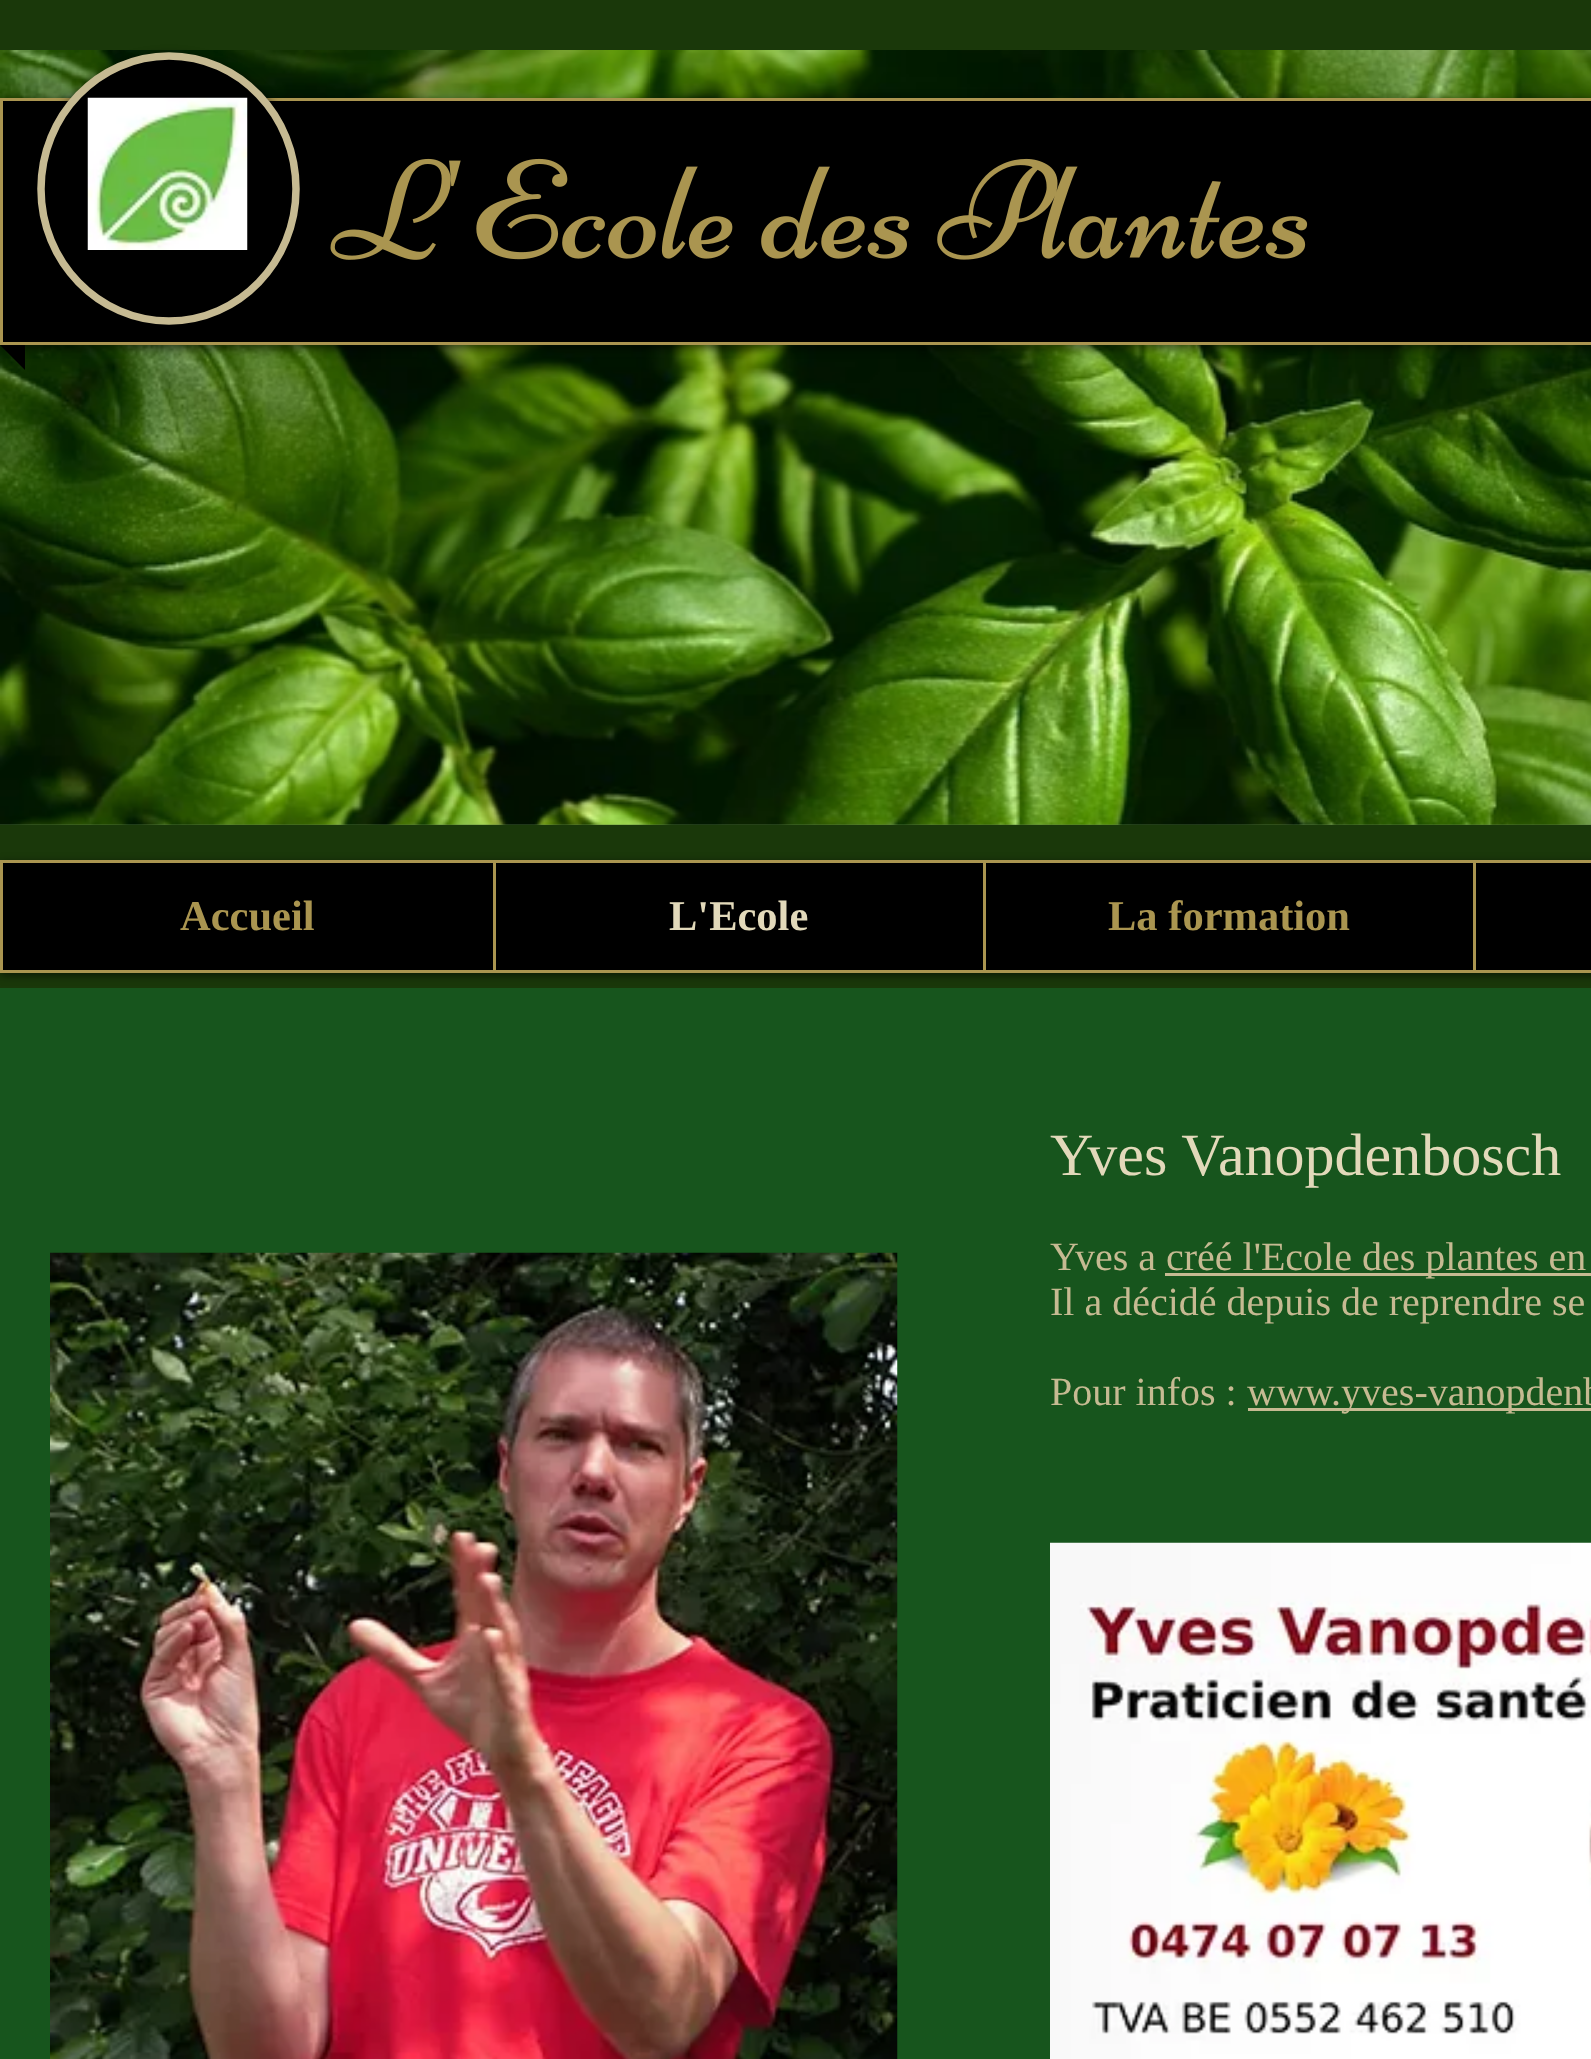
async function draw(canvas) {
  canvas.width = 1591
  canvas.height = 2059
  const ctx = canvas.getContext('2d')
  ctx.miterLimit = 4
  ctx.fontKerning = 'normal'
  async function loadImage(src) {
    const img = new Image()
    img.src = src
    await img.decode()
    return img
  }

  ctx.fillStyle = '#1a380a'
  ctx.fillRect(0, 0, 1591, 2059)
  ctx.fillStyle = '#5f804d'
  ctx.fillRect(0, 824, 1591, 1)
  ctx.drawImage(await loadImage('image1.png'), 0, 50, 1591, 775)
  ctx.fillStyle = '#000'
  ctx.beginPath()
  ctx.moveTo(0, 345)
  ctx.lineTo(25, 345)
  ctx.lineTo(25, 370)
  ctx.closePath()
  ctx.fill()
  ctx.fillStyle = '#00000099'
  ctx.filter = 'blur(5px)'
  ctx.beginPath()
  ctx.rect(0, 100, 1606, 248)
  ctx.fill()
  ctx.filter = 'none'
  ctx.fillStyle = '#000'
  ctx.beginPath()
  ctx.rect(1.5, 99.5, 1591, 244)
  ctx.fill()
  ctx.strokeStyle = '#aa9550'
  ctx.lineWidth = 3
  ctx.stroke()
  ctx.fillStyle = '#00000099'
  ctx.filter = 'blur(5px)'
  ctx.beginPath()
  ctx.roundRect(38, 55, 262, 273, 131)
  ctx.fill()
  ctx.filter = 'none'
  ctx.fillStyle = '#000'
  ctx.beginPath()
  ctx.ellipse(169, 189, 131, 136, 0, 0, 2 * Math.PI)
  ctx.fill()
  ctx.beginPath()
  ctx.moveTo(169, 56)
  ctx.bezierCurveTo(239, 56, 296, 115.5, 296, 189)
  ctx.bezierCurveTo(296, 262, 239, 321, 169, 321)
  ctx.bezierCurveTo(98.5, 321, 41, 262, 41, 189)
  ctx.bezierCurveTo(41, 115.5, 98.5, 56, 169, 56)
  ctx.closePath()
  ctx.strokeStyle = '#c6ba92'
  ctx.lineWidth = 7.5
  ctx.stroke()
  ctx.drawImage(await loadImage('image0.png'), 87, 97, 161, 153)
  ctx.drawImage(await loadImage('image2.png'), 330, 158, 978, 102)
  ctx.fillStyle = '#00000099'
  ctx.filter = 'blur(5px)'
  ctx.beginPath()
  ctx.rect(0, 863, 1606, 112)
  ctx.fill()
  ctx.filter = 'none'
  ctx.fillStyle = '#000'
  ctx.beginPath()
  ctx.rect(1.5, 861.5, 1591, 110)
  ctx.fill()
  ctx.strokeStyle = '#aa9550'
  ctx.lineWidth = 3
  ctx.stroke()
  ctx.font = 'bold 42.5px Liberation Serif'
  ctx.fillStyle = '#aa9550'
  ctx.fillText('Accueil', 180, 930)
  ctx.fillRect(493, 863, 3, 107)
  ctx.fillStyle = '#e2d9ba'
  ctx.fillText('L\'Ecole', 669, 930)
  ctx.fillStyle = '#aa9550'
  ctx.fillRect(983, 863, 3, 107)
  ctx.fillText('La formation', 1108, 930)
  ctx.fillRect(1473, 863, 3, 107)
  ctx.fillStyle = '#17551d'
  ctx.fillRect(0, 988, 1591, 1071)
  ctx.drawImage(await loadImage('image3.png'), 50, 1252, 848, 807)
  ctx.font = '60px Liberation Serif'
  ctx.fillStyle = '#e2d9ba'
  ctx.fillText('Yves Vanopdenbosch', 1050, 1175)
  ctx.font = '40px Liberation Serif'
  ctx.fillStyle = '#c6ba92'
  ctx.fillText('Yves a', 1050, 1270)
  ctx.fillRect(1165, 1273, 426, 3)
  ctx.fillText('créé l\'Ecole des plantes en', 1166, 1270)
  ctx.fillText('Il a décidé depuis de reprendre se', 1050, 1315)
  ctx.fillText('Pour infos :', 1050, 1405)
  ctx.fillRect(1248, 1408, 343, 3)
  ctx.fillText('www.yves-vanopdenb', 1247, 1405)
  ctx.drawImage(await loadImage('image4.png'), 1050, 1542, 541, 517)
}

draw(document.querySelector('canvas'))
